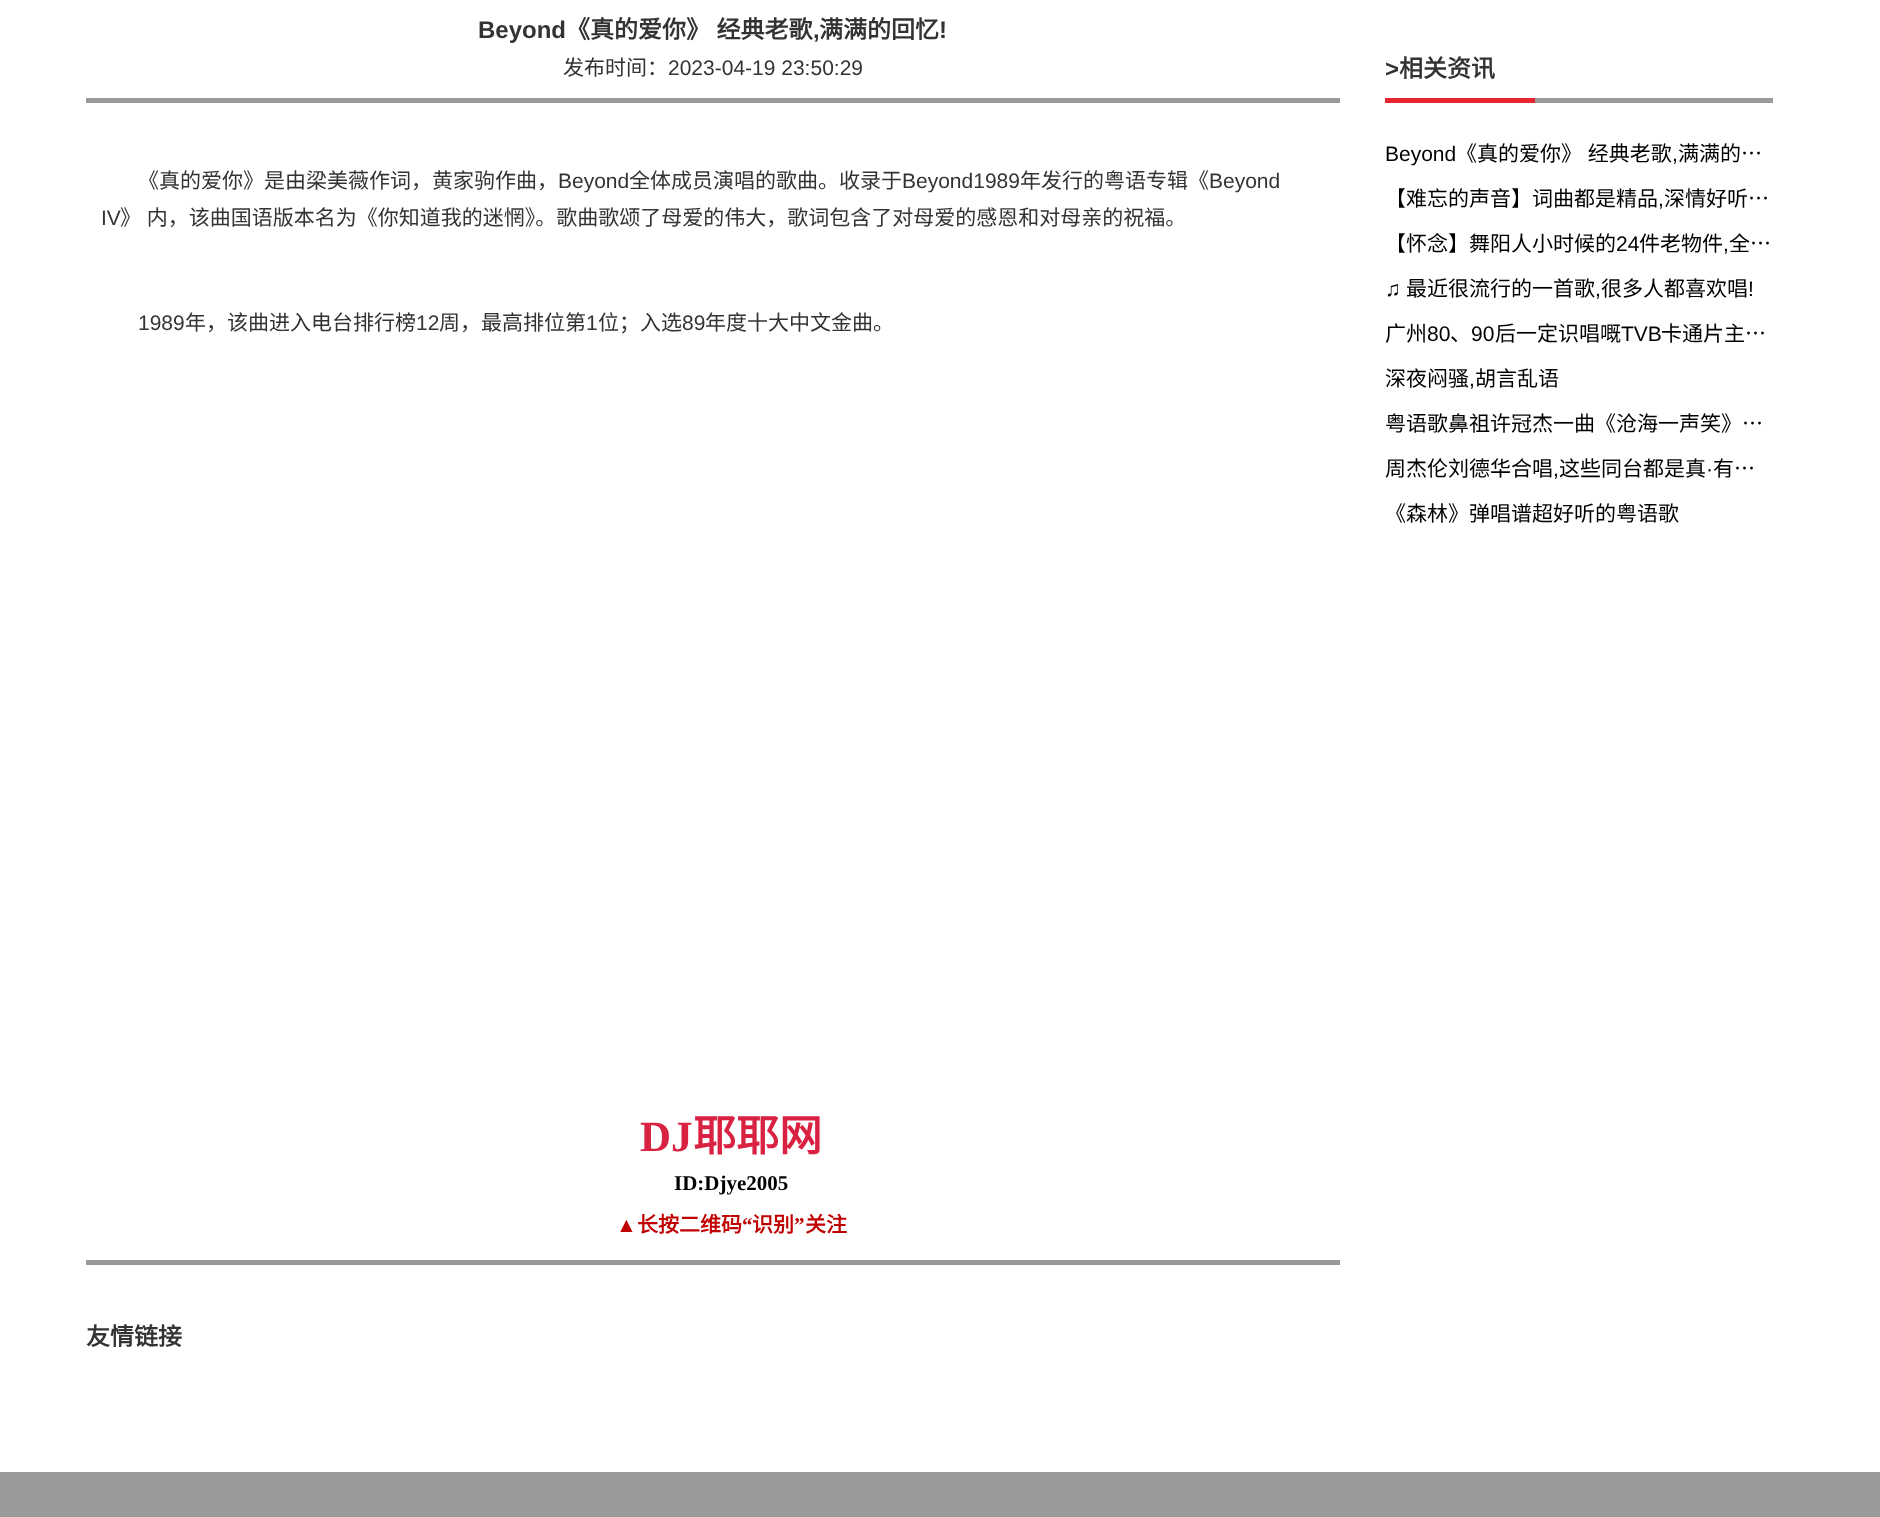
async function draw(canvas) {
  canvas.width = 1880
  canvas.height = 1517
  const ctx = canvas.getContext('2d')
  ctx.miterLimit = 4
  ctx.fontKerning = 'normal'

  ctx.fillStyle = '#fff'
  ctx.fillRect(0, 0, 1880, 1517)
  ctx.font = 'bold 24px Liberation Sans'
  ctx.fillStyle = '#333'
  ctx.fillText('Beyond', 478, 38)
  ctx.wordSpacing = '1px'
  ctx.font = 'bold 24px Noto Sans CJK SC'
  ctx.fillText('《真的爱你》 经典老歌', 566, 38)
  ctx.wordSpacing = '0px'
  ctx.font = 'bold 24px Liberation Sans'
  ctx.fillText(',', 813, 38)
  ctx.font = 'bold 24px Noto Sans CJK SC'
  ctx.fillText('满满的回忆', 819, 38)
  ctx.font = 'bold 24px Liberation Sans'
  ctx.fillText('!', 939, 38)
  ctx.font = '21px Noto Sans CJK SC'
  ctx.fillText('发布时间：', 563, 75)
  ctx.font = '21px Liberation Sans'
  ctx.fillText('2023-04-19 23:50:29', 668, 75)
  ctx.fillStyle = '#999'
  ctx.fillRect(86, 98, 1254, 5)
  ctx.font = '21px Noto Sans CJK SC'
  ctx.fillStyle = '#333'
  ctx.fillText('《真的爱你》是由梁美薇作词，黄家驹作曲，', 138, 188)
  ctx.font = '21px Liberation Sans'
  ctx.fillText('Beyond', 558, 188)
  ctx.font = '21px Noto Sans CJK SC'
  ctx.fillText('全体成员演唱的歌曲。收录于', 629, 188)
  ctx.font = '21px Liberation Sans'
  ctx.fillText('Beyond1989', 902, 188)
  ctx.font = '21px Noto Sans CJK SC'
  ctx.fillText('年发行的粤语专辑《', 1020, 188)
  ctx.font = '21px Liberation Sans'
  ctx.fillText('Beyond', 1209, 188)
  ctx.fillText('IV', 101, 225)
  ctx.wordSpacing = '1px'
  ctx.font = '21px Noto Sans CJK SC'
  ctx.fillText('》 内，该曲国语版本名为《你知道我的迷惘》。歌曲歌颂了母爱的伟大，歌词包含了对母爱的感恩和对母亲的祝福。', 120, 225)
  ctx.wordSpacing = '0px'
  ctx.font = '21px Liberation Sans'
  ctx.fillText('1989', 138, 330)
  ctx.font = '21px Noto Sans CJK SC'
  ctx.fillText('年，该曲进入电台排行榜', 185, 330)
  ctx.font = '21px Liberation Sans'
  ctx.fillText('12', 416, 330)
  ctx.font = '21px Noto Sans CJK SC'
  ctx.fillText('周，最高排位第', 439, 330)
  ctx.font = '21px Liberation Sans'
  ctx.fillText('1', 586, 330)
  ctx.font = '21px Noto Sans CJK SC'
  ctx.fillText('位；入选', 598, 330)
  ctx.font = '21px Liberation Sans'
  ctx.fillText('89', 682, 330)
  ctx.font = '21px Noto Sans CJK SC'
  ctx.fillText('年度十大中文金曲。', 705, 330)
  ctx.font = 'bold 43px Liberation Serif'
  ctx.fillStyle = '#d92142'
  ctx.fillText('DJ', 640, 1151)
  ctx.font = 'bold 43px Noto Sans CJK SC'
  ctx.fillText('耶耶网', 693, 1151)
  ctx.font = 'bold 21px Liberation Serif'
  ctx.fillStyle = '#000'
  ctx.fillText('ID:Djye2005', 674, 1190)
  ctx.fillStyle = '#c00000'
  ctx.fillText('▲', 616, 1232)
  ctx.font = 'bold 21px Noto Sans CJK SC'
  ctx.fillText('长按二维码', 637, 1232)
  ctx.font = 'bold 21px Liberation Serif'
  ctx.fillText('“', 742, 1232)
  ctx.font = 'bold 21px Noto Sans CJK SC'
  ctx.fillText('识别', 752, 1232)
  ctx.font = 'bold 21px Liberation Serif'
  ctx.fillText('”', 794, 1232)
  ctx.font = 'bold 21px Noto Sans CJK SC'
  ctx.fillText('关注', 805, 1232)
  ctx.fillStyle = '#999'
  ctx.fillRect(86, 1260, 1254, 5)
  ctx.font = 'bold 24px Liberation Sans'
  ctx.fillStyle = '#333'
  ctx.fillText('>', 1385, 77)
  ctx.font = 'bold 24px Noto Sans CJK SC'
  ctx.fillText('相关资讯', 1399, 77)
  ctx.fillStyle = '#e7262f'
  ctx.fillRect(1385, 98, 150, 5)
  ctx.fillStyle = '#999'
  ctx.fillRect(1535, 98, 238, 5)
  ctx.font = '21px Liberation Sans'
  ctx.fillStyle = '#000'
  ctx.fillText('Beyond', 1385, 161)
  ctx.wordSpacing = '1px'
  ctx.font = '21px Noto Sans CJK SC'
  ctx.fillText('《真的爱你》 经典老歌', 1456, 161)
  ctx.wordSpacing = '0px'
  ctx.font = '21px Liberation Sans'
  ctx.fillText(',', 1672, 161)
  ctx.font = '21px Noto Sans CJK SC'
  ctx.fillText('满满的…', 1678, 161)
  ctx.fillText('【难忘的声音】词曲都是精品', 1385, 206)
  ctx.font = '21px Liberation Sans'
  ctx.fillText(',', 1658, 206)
  ctx.font = '21px Noto Sans CJK SC'
  ctx.fillText('深情好听…', 1664, 206)
  ctx.fillText('【怀念】舞阳人小时候的', 1385, 251)
  ctx.font = '21px Liberation Sans'
  ctx.fillText('24', 1616, 251)
  ctx.font = '21px Noto Sans CJK SC'
  ctx.fillText('件老物件', 1639, 251)
  ctx.font = '21px Liberation Sans'
  ctx.fillText(',', 1723, 251)
  ctx.font = '21px Noto Sans CJK SC'
  ctx.fillText('全…', 1729, 251)
  ctx.font = '21px Liberation Sans'
  ctx.fillText('♫', 1385, 296)
  ctx.font = '21px Noto Sans CJK SC'
  ctx.fillText('最近很流行的一首歌', 1406, 296)
  ctx.font = '21px Liberation Sans'
  ctx.fillText(',', 1595, 296)
  ctx.font = '21px Noto Sans CJK SC'
  ctx.fillText('很多人都喜欢唱', 1601, 296)
  ctx.font = '21px Liberation Sans'
  ctx.fillText('!', 1748, 296)
  ctx.font = '21px Noto Sans CJK SC'
  ctx.fillText('广州', 1385, 341)
  ctx.font = '21px Liberation Sans'
  ctx.fillText('80', 1427, 341)
  ctx.font = '21px Noto Sans CJK SC'
  ctx.fillText('、', 1450, 341)
  ctx.font = '21px Liberation Sans'
  ctx.fillText('90', 1471, 341)
  ctx.font = '21px Noto Sans CJK SC'
  ctx.fillText('后一定识唱嘅', 1495, 341)
  ctx.font = '21px Liberation Sans'
  ctx.fillText('TVB', 1621, 341)
  ctx.font = '21px Noto Sans CJK SC'
  ctx.fillText('卡通片主…', 1661, 341)
  ctx.fillText('深夜闷骚', 1385, 386)
  ctx.font = '21px Liberation Sans'
  ctx.fillText(',', 1469, 386)
  ctx.font = '21px Noto Sans CJK SC'
  ctx.fillText('胡言乱语', 1475, 386)
  ctx.fillText('粤语歌鼻祖许冠杰一曲《沧海一声笑》…', 1385, 431)
  ctx.fillText('周杰伦刘德华合唱', 1385, 476)
  ctx.fillText('这些同台都是真', 1559, 476)
  ctx.font = '21px Liberation Sans'
  ctx.fillText('·', 1706, 476)
  ctx.font = '21px Noto Sans CJK SC'
  ctx.fillText('有…', 1713, 476)
  ctx.font = '21px Liberation Sans'
  ctx.fillText(',', 1553, 476)
  ctx.font = '21px Noto Sans CJK SC'
  ctx.fillText('《森林》弹唱谱超好听的粤语歌', 1385, 521)
  ctx.font = 'bold 24px Noto Sans CJK SC'
  ctx.fillStyle = '#333'
  ctx.fillText('友情链接', 86, 1345)
  ctx.fillStyle = '#999'
  ctx.fillRect(0, 1472, 1880, 45)
}

draw(document.querySelector('canvas'))
